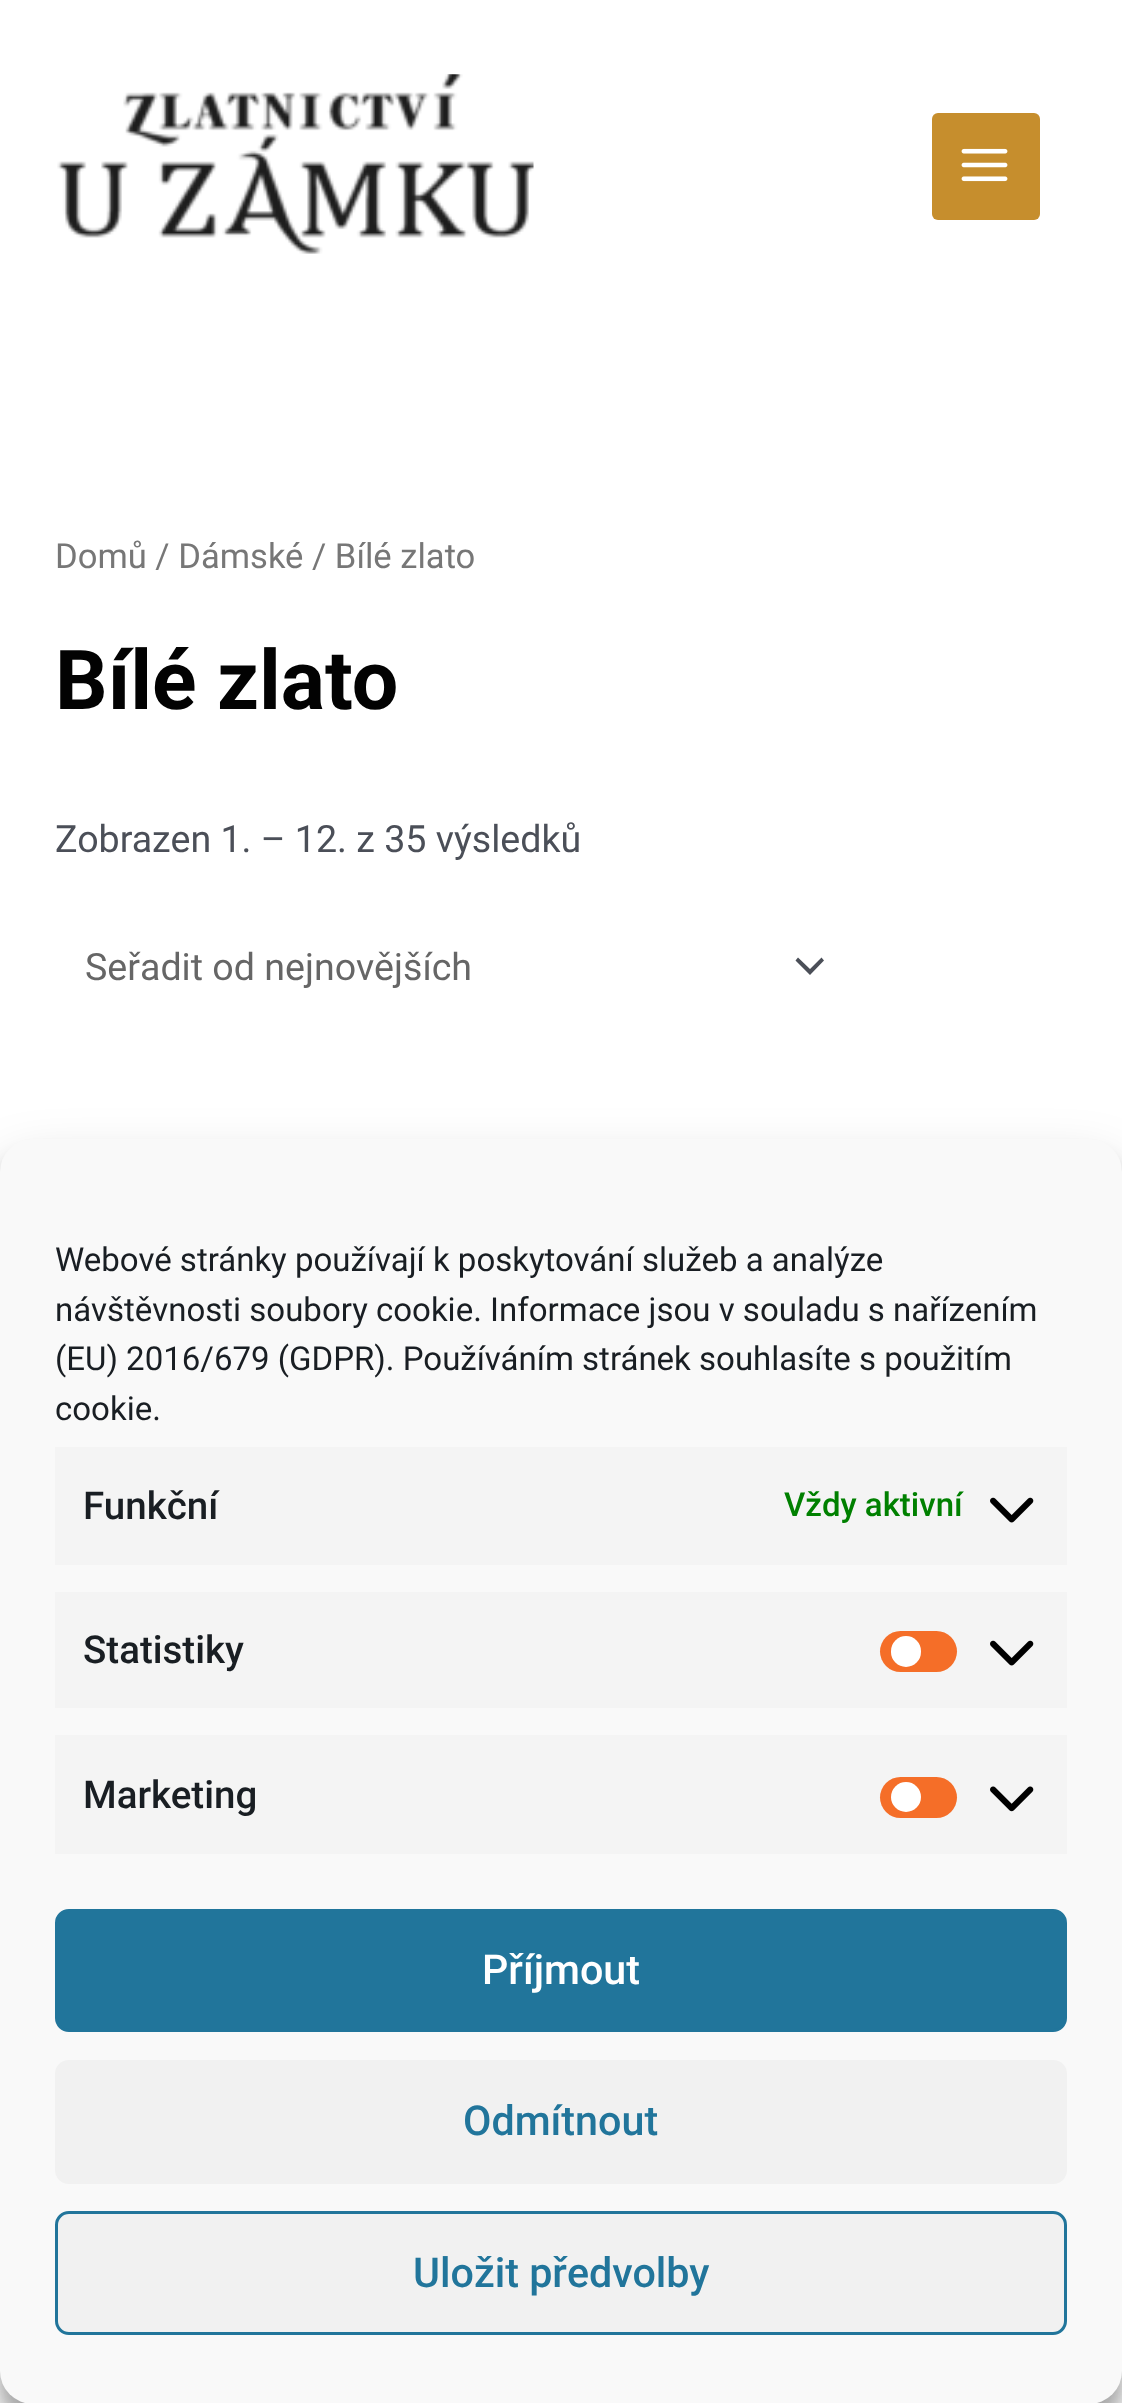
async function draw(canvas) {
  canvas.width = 1122
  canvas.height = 2403
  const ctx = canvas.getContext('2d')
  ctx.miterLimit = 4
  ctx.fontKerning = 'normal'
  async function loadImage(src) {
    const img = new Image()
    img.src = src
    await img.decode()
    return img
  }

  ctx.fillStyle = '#fff'
  ctx.fillRect(0, 0, 1122, 2403)
  ctx.drawImage(await loadImage('image0.png'), 57, 74, 477, 180)
  ctx.fillStyle = '#c68e2d'
  ctx.beginPath()
  ctx.roundRect(932, 113, 108, 107, 6)
  ctx.fill()
  ctx.drawImage(await loadImage('image1.png'), 961, 148, 47, 34)
  ctx.font = '34.6px Roboto'
  ctx.fillStyle = '#777'
  ctx.fillText('Domů / Dámské / Bílé zlato', 55, 568)
  ctx.font = 'bold 82.5px Roboto'
  ctx.fillStyle = '#020202'
  ctx.fillText('Bílé zlato', 55, 709)
  ctx.font = '37.6px Roboto'
  ctx.fillStyle = '#4b4f58'
  ctx.fillText('Zobrazen 1. – 12. z 35 výsledků', 55, 852)
  ctx.beginPath()
  ctx.moveTo(795.5, 960.5)
  ctx.lineTo(810, 975)
  ctx.lineTo(824, 960.5)
  ctx.lineTo(821.5, 957.5)
  ctx.lineTo(810, 969)
  ctx.lineTo(798, 957.5)
  ctx.closePath()
  ctx.fill()
  ctx.fillStyle = '#666'
  ctx.fillText('Seřadit od nejnovějších', 85, 980)
  ctx.fillStyle = '#0000001a'
  ctx.filter = 'blur(41px)'
  ctx.beginPath()
  ctx.rect(55, 2109, 479, 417)
  ctx.fill()
  ctx.filter = 'none'
  ctx.filter = 'blur(41px)'
  ctx.beginPath()
  ctx.rect(589, 2109, 478, 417)
  ctx.fill()
  ctx.filter = 'none'
  ctx.fillStyle = '#0000003b'
  ctx.filter = 'blur(8px)'
  ctx.beginPath()
  ctx.roundRect(0, 1155, 1122, 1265, 33)
  ctx.fill()
  ctx.filter = 'none'
  ctx.fillStyle = '#00000030'
  ctx.filter = 'blur(27.5px)'
  ctx.beginPath()
  ctx.roundRect(0, 1166, 1122, 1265, 33)
  ctx.fill()
  ctx.filter = 'none'
  ctx.fillStyle = '#f9f9f9'
  ctx.beginPath()
  ctx.roundRect(0, 1139, 1122, 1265, 33)
  ctx.fill()
  ctx.font = '33px Roboto'
  ctx.fillStyle = '#191e23'
  ctx.fillText('Webové stránky používají k poskytování služeb a analýze', 55, 1271)
  ctx.fillText('návštěvnosti soubory cookie. Informace jsou v souladu s nařízením', 55, 1321)
  ctx.fillText('(EU) 2016/679 (GDPR). Používáním stránek souhlasíte s použitím', 55, 1370)
  ctx.fillText('cookie.', 55, 1420)
  ctx.fillStyle = '#f4f4f4'
  ctx.fillRect(55, 1447, 1012, 118)
  ctx.font = '500 38.5px Roboto'
  ctx.fillStyle = '#191e23'
  ctx.fillText('Funkční', 83, 1519)
  ctx.font = '500 33px Roboto'
  ctx.fillStyle = '#008000'
  ctx.fillText('Vždy aktivní', 784, 1516)
  ctx.drawImage(await loadImage('image2.png'), 990, 1497, 44, 26)
  ctx.fillStyle = '#f4f4f4'
  ctx.fillRect(55, 1592, 1012, 116)
  ctx.font = '500 38.5px Roboto'
  ctx.fillStyle = '#191e23'
  ctx.fillText('Statistiky', 83, 1663)
  ctx.fillStyle = '#f56e28'
  ctx.beginPath()
  ctx.roundRect(880, 1631, 77, 41, 20.5)
  ctx.fill()
  ctx.fillStyle = '#fff'
  ctx.beginPath()
  ctx.roundRect(891, 1636, 30, 31, 15)
  ctx.fill()
  ctx.drawImage(await loadImage('image2.png'), 990, 1640, 44, 26)
  ctx.fillStyle = '#f4f4f4'
  ctx.fillRect(55, 1735, 1012, 119)
  ctx.fillStyle = '#191e23'
  ctx.fillText('Marketing', 83, 1808)
  ctx.fillStyle = '#f56e28'
  ctx.beginPath()
  ctx.roundRect(880, 1777, 77, 41, 20.5)
  ctx.fill()
  ctx.fillStyle = '#fff'
  ctx.beginPath()
  ctx.arc(906, 1797, 15, 0, 2 * Math.PI)
  ctx.fill()
  ctx.drawImage(await loadImage('image3.png'), 990, 1786, 44, 26)
  ctx.fillStyle = '#21759b'
  ctx.beginPath()
  ctx.roundRect(56.5, 1910.5, 1009, 120, 12.5)
  ctx.fill()
  ctx.strokeStyle = '#21759b'
  ctx.lineWidth = 3
  ctx.stroke()
  ctx.font = '500 41.25px Roboto'
  ctx.fillStyle = '#fff'
  ctx.fillText('Příjmout', 482, 1984)
  ctx.fillStyle = '#f1f1f1'
  ctx.beginPath()
  ctx.roundRect(55, 2060, 1012, 124, 14)
  ctx.fill()
  ctx.fillStyle = '#21759b'
  ctx.fillText('Odmítnout', 463, 2135)
  ctx.fillStyle = '#f1f1f1'
  ctx.beginPath()
  ctx.roundRect(56.5, 2212.5, 1009, 121, 12.5)
  ctx.fill()
  ctx.stroke()
  ctx.fillStyle = '#21759b'
  ctx.fillText('Uložit předvolby', 413, 2287)
}

draw(document.querySelector('canvas'))
